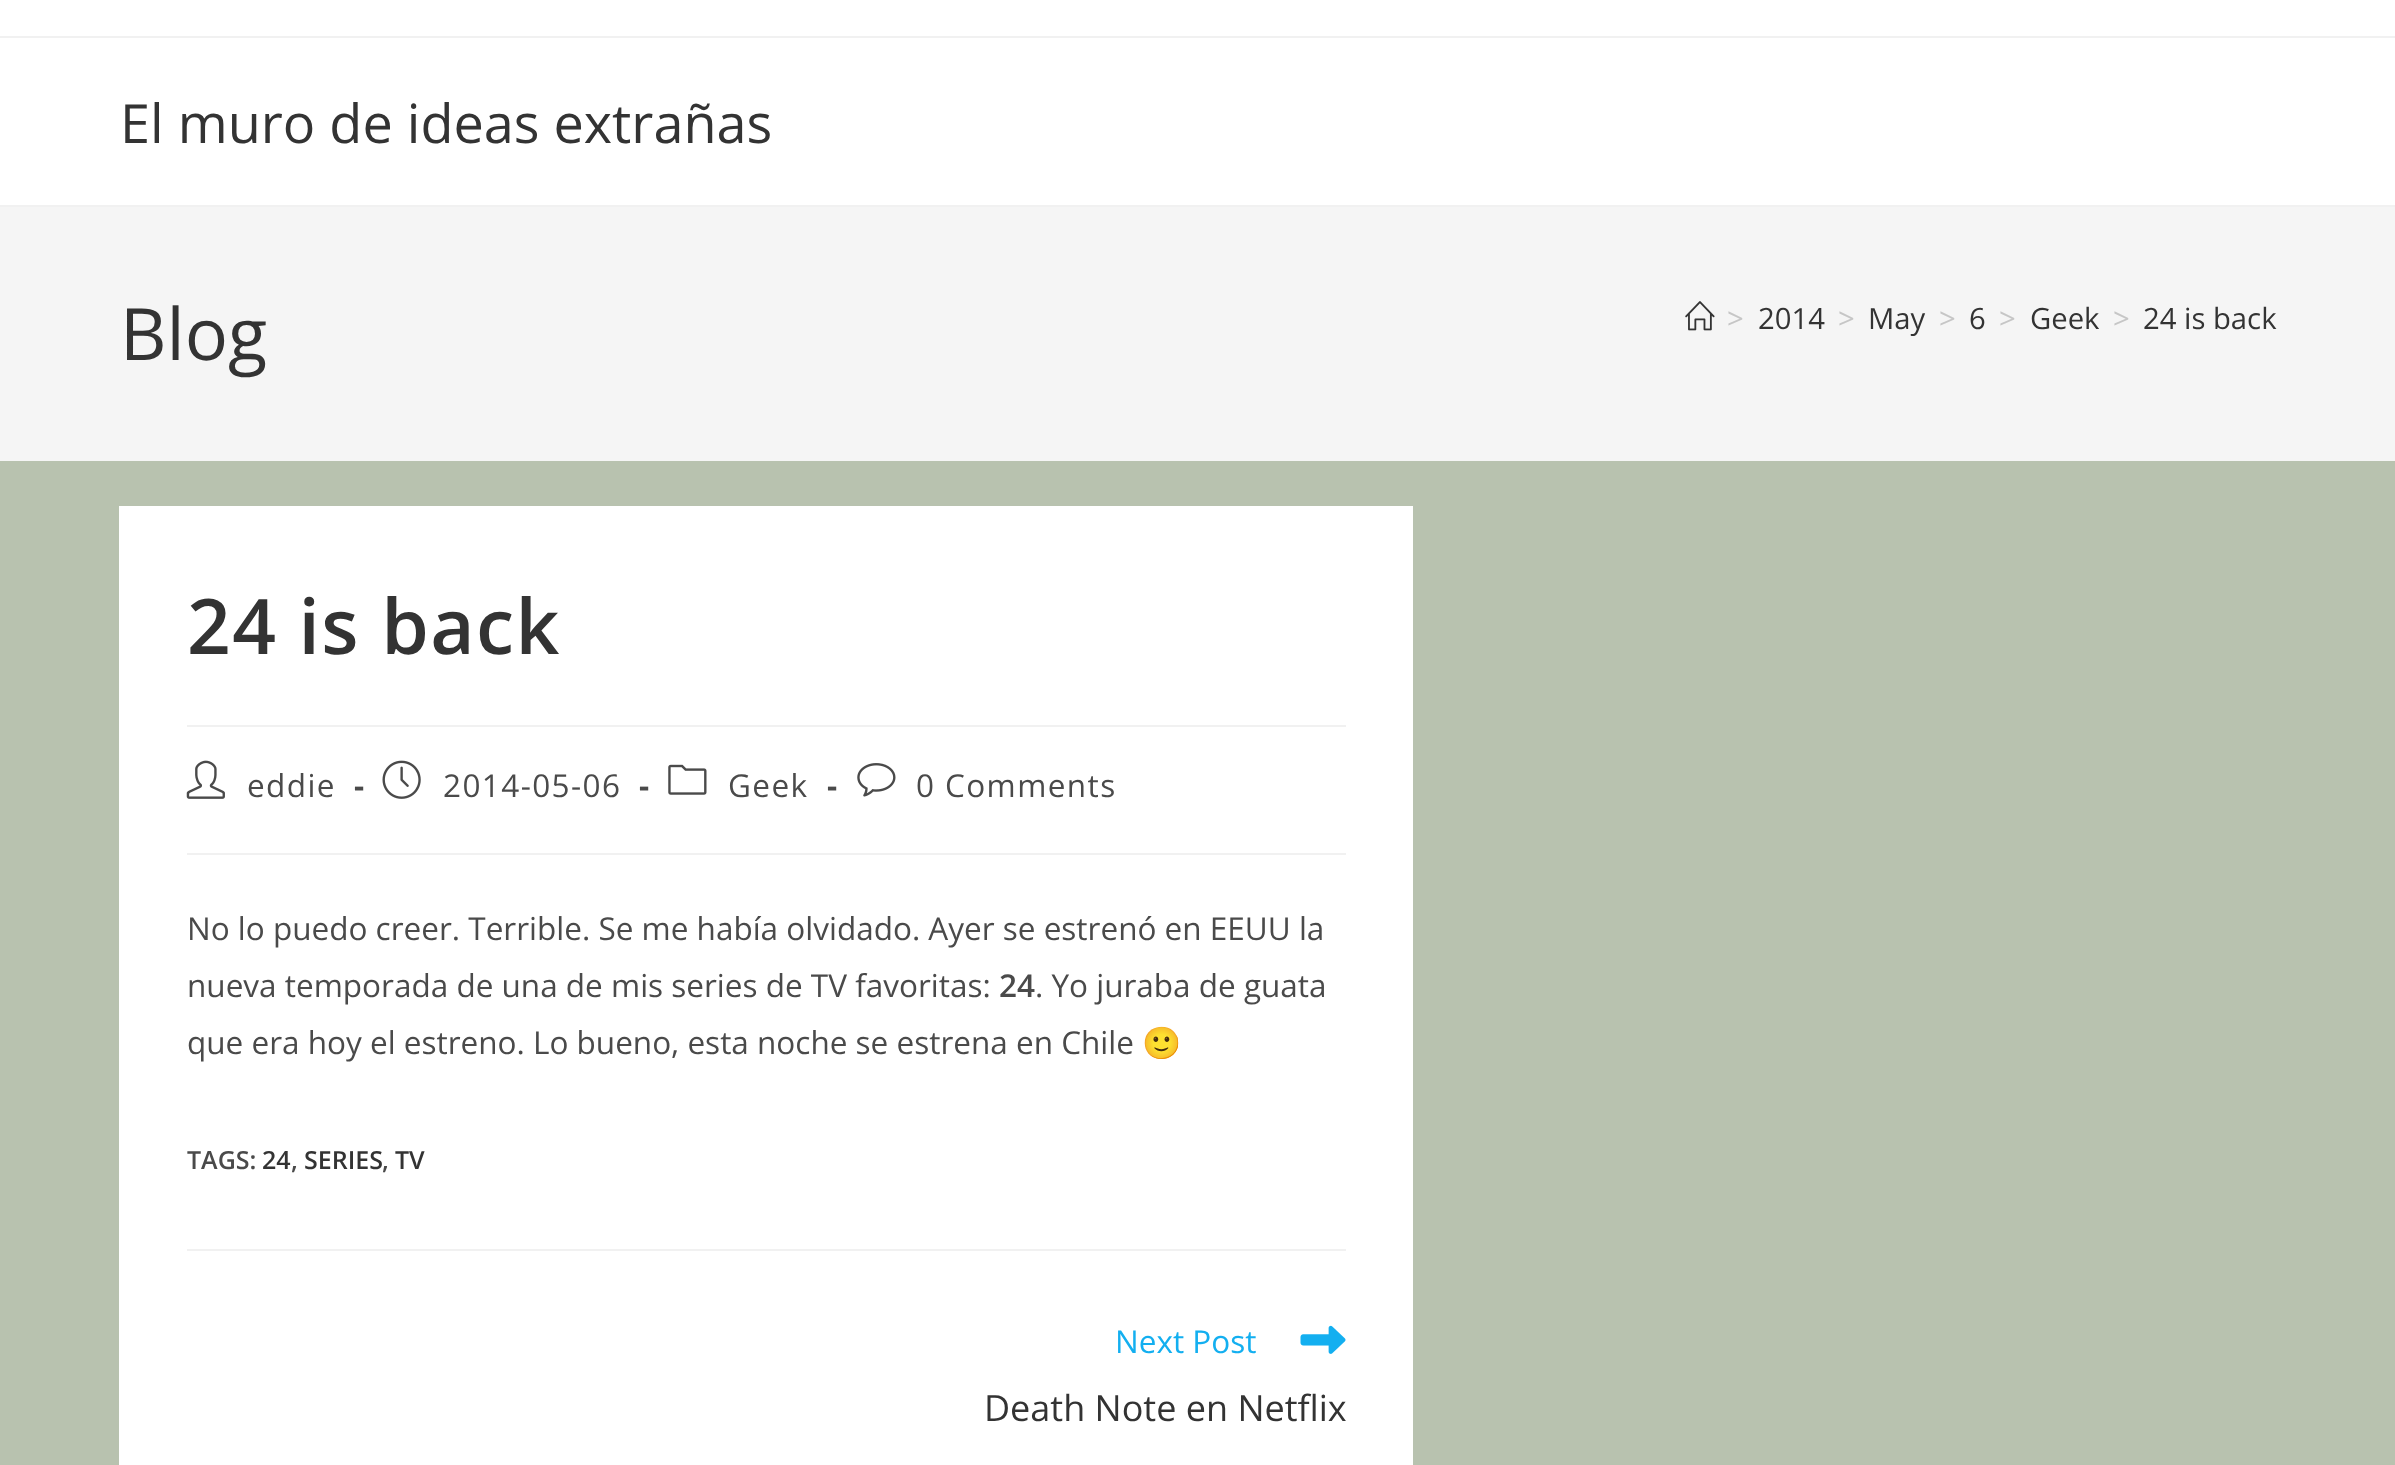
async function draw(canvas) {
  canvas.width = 2395
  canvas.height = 1465
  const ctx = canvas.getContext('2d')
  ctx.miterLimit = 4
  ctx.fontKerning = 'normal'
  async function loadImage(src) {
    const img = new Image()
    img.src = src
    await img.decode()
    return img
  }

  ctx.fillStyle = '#b8c2af'
  ctx.fillRect(0, 0, 2395, 1465)
  ctx.fillStyle = '#fff'
  ctx.fillRect(0, 0, 2395, 36)
  ctx.fillStyle = '#f1f1f1'
  ctx.fillRect(0, 36, 2395, 2)
  ctx.fillStyle = '#fff'
  ctx.fillRect(0, 38, 2395, 167)
  ctx.fillStyle = '#f1f1f1'
  ctx.fillRect(0, 205, 2395, 2)
  ctx.font = '54px Open Sans'
  ctx.fillStyle = '#333'
  ctx.fillText('El muro de ideas extrañas', 120, 143)
  ctx.fillStyle = '#f5f5f5'
  ctx.fillRect(0, 207, 2395, 254)
  ctx.font = '72px Open Sans'
  ctx.fillStyle = '#333'
  ctx.fillText('Blog', 120, 360)
  ctx.drawImage(await loadImage('image0.png'), 1685, 301, 30, 30)
  ctx.font = '29.25px Open Sans'
  ctx.fillStyle = '#c6c6c6'
  ctx.fillText('>', 1727, 329)
  ctx.fillStyle = '#333'
  ctx.fillText('2014', 1758, 329)
  ctx.fillStyle = '#c6c6c6'
  ctx.fillText('>', 1838, 329)
  ctx.fillStyle = '#333'
  ctx.fillText('May', 1868, 329)
  ctx.fillStyle = '#c6c6c6'
  ctx.fillText('>', 1939, 329)
  ctx.fillStyle = '#333'
  ctx.fillText('6', 1969, 329)
  ctx.fillStyle = '#c6c6c6'
  ctx.fillText('>', 1999, 329)
  ctx.fillStyle = '#333'
  ctx.fillText('Geek', 2030, 329)
  ctx.fillStyle = '#c6c6c6'
  ctx.fillText('>', 2113, 329)
  ctx.fillStyle = '#333'
  ctx.fillText('24 is back', 2143, 329)
  ctx.fillStyle = '#fff'
  ctx.fillRect(119, 506, 1294, 959)
  ctx.fillStyle = '#f1f1f1'
  ctx.fillRect(187, 725, 1159, 2)
  ctx.letterSpacing = '1.4px'
  ctx.font = '600 76.5px Open Sans'
  ctx.fillStyle = '#333'
  ctx.fillText('24 is back', 187, 654)
  ctx.fillStyle = '#f1f1f1'
  ctx.fillRect(187, 853, 1159, 2)
  ctx.drawImage(await loadImage('image1.png'), 186, 760, 39, 39)
  ctx.font = '31.5px Open Sans'
  ctx.fillStyle = '#4a4a4a'
  ctx.fillText('eddie', 247, 797)
  ctx.font = 'bold 31.5px Open Sans'
  ctx.fillText('-', 354, 797)
  ctx.drawImage(await loadImage('image2.png'), 382, 760, 39, 39)
  ctx.font = '31.5px Open Sans'
  ctx.fillText('2014-05-06', 443, 797)
  ctx.font = 'bold 31.5px Open Sans'
  ctx.fillText('-', 639, 797)
  ctx.drawImage(await loadImage('image3.png'), 668, 764, 39, 31)
  ctx.font = '31.5px Open Sans'
  ctx.fillText('Geek', 728, 797)
  ctx.font = 'bold 31.5px Open Sans'
  ctx.fillText('-', 827, 797)
  ctx.drawImage(await loadImage('image4.png'), 857, 763, 39, 34)
  ctx.font = '31.5px Open Sans'
  ctx.fillText('0 Comments', 916, 797)
  ctx.letterSpacing = '0px'
  ctx.fillText('No lo puedo creer. Terrible. Se me había olvidado. Ayer se estrenó en EEUU la', 187, 940)
  ctx.fillText('nueva temporada de una de mis series de TV favoritas:', 187, 997)
  ctx.font = '600 31.5px Open Sans'
  ctx.fillText('24', 999, 997)
  ctx.font = '31.5px Open Sans'
  ctx.fillText('. Yo juraba de guata', 1035, 997)
  ctx.fillText('que era hoy el estreno. Lo bueno, esta noche se estrena en Chile', 187, 1054)
  ctx.font = '31.5px Noto Color Emoji'
  ctx.fillText('🙂', 1142, 1054)
  ctx.font = '600 25px Open Sans'
  ctx.fillText('TAGS:', 187, 1169)
  ctx.fillStyle = '#333'
  ctx.fillText('24', 262, 1169)
  ctx.fillStyle = '#4a4a4a'
  ctx.fillText(',', 291, 1169)
  ctx.fillStyle = '#333'
  ctx.fillText('SERIES', 304, 1169)
  ctx.fillStyle = '#4a4a4a'
  ctx.fillText(',', 382, 1169)
  ctx.fillStyle = '#333'
  ctx.fillText('TV', 395, 1169)
  ctx.fillStyle = '#f1f1f1'
  ctx.fillRect(187, 1249, 1159, 2)
  ctx.font = '31.5px Open Sans'
  ctx.fillStyle = '#13aff0'
  ctx.fillText('Next Post', 1115, 1353)
  ctx.drawImage(await loadImage('image5.png'), 1300, 1325, 46, 29)
  ctx.font = '36px Open Sans'
  ctx.fillStyle = '#333'
  ctx.fillText('Death Note en Netflix', 984, 1421)
}

draw(document.querySelector('canvas'))
